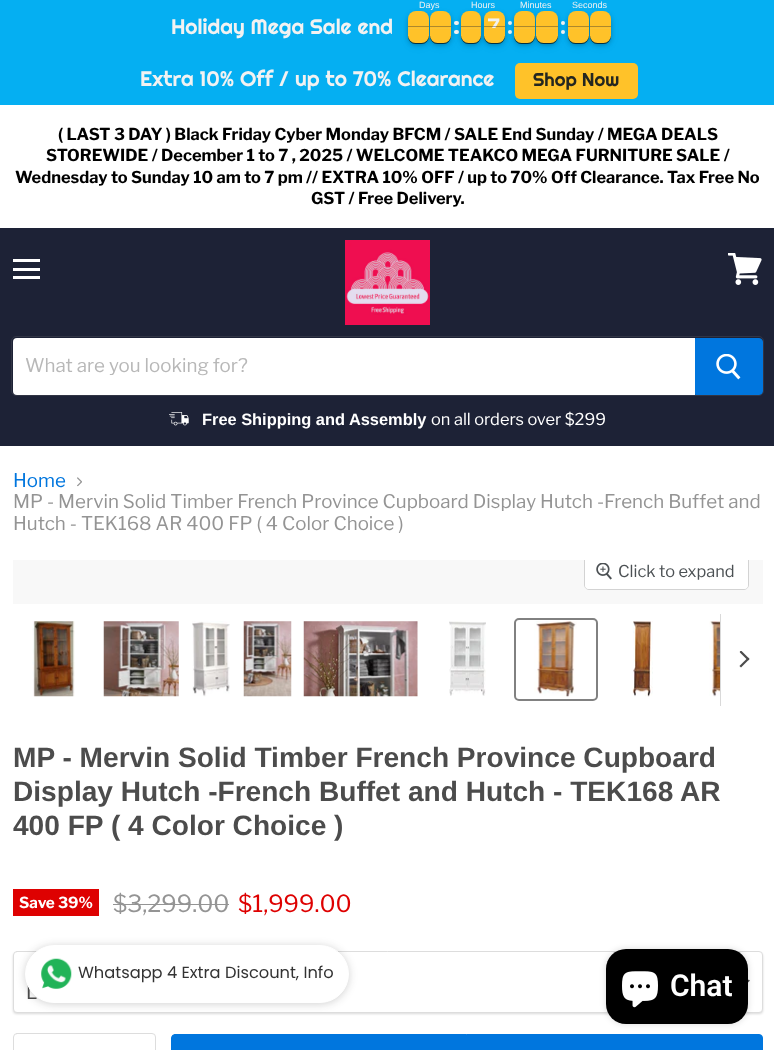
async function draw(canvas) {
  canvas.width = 774
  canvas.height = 1050
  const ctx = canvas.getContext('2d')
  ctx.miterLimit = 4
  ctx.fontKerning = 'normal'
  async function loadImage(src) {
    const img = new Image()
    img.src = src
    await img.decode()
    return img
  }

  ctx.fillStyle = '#fff'
  ctx.fillRect(0, 0, 774, 1050)
  ctx.fillStyle = '#05aff2'
  ctx.fillRect(0, 0, 774, 105)
  ctx.font = '21px Righteous'
  ctx.fillStyle = '#f2f2f2'
  ctx.fillText('Holiday Mega Sale end', 171, 34)
  ctx.fillStyle = '#0000000d'
  ctx.filter = 'blur(5px)'
  ctx.beginPath()
  ctx.roundRect(408, 15, 21, 31, 8)
  ctx.fill()
  ctx.filter = 'none'
  ctx.fillStyle = '#0000003d'
  ctx.filter = 'blur(2px)'
  ctx.beginPath()
  ctx.roundRect(408, 14, 21, 31, 8)
  ctx.fill()
  ctx.filter = 'none'
  ctx.fillStyle = '#00000066'
  ctx.filter = 'blur(0.5px)'
  ctx.beginPath()
  ctx.roundRect(408, 29, 21, 15, 7.5)
  ctx.fill()
  ctx.filter = 'none'
  ctx.fillStyle = '#0000000d'
  ctx.filter = 'blur(5px)'
  ctx.beginPath()
  ctx.roundRect(430, 15, 21, 31, 8)
  ctx.fill()
  ctx.filter = 'none'
  ctx.fillStyle = '#0000003d'
  ctx.filter = 'blur(2px)'
  ctx.beginPath()
  ctx.roundRect(430, 14, 21, 31, 8)
  ctx.fill()
  ctx.filter = 'none'
  ctx.fillStyle = '#00000066'
  ctx.filter = 'blur(0.5px)'
  ctx.beginPath()
  ctx.roundRect(430, 29, 21, 15, 7.5)
  ctx.fill()
  ctx.filter = 'none'
  ctx.fillStyle = '#ffc229'
  ctx.beginPath()
  ctx.roundRect(408, 11, 21, 17, [8, 8, 0, 0])
  ctx.fill()
  ctx.fillStyle = '#33333366'
  ctx.fillRect(408, 26, 21, 1)
  ctx.fillStyle = '#00000066'
  ctx.filter = 'blur(0.5px)'
  ctx.beginPath()
  ctx.roundRect(408, 29, 21, 15, 7.5)
  ctx.fill()
  ctx.filter = 'none'
  ctx.fillStyle = '#ffc229'
  ctx.beginPath()
  ctx.roundRect(408, 28, 21, 15, [0, 0, 7.5, 7.5])
  ctx.fill()
  ctx.fillStyle = '#cccccc1a'
  ctx.fillRect(408, 28, 21, 1)
  ctx.fillStyle = '#f2f2f2'
  ctx.beginPath()
  ctx.roundRect(454, 21, 5, 4, 2)
  ctx.fill()
  ctx.beginPath()
  ctx.roundRect(454, 30, 5, 4, 2)
  ctx.fill()
  ctx.fillStyle = '#0000000d'
  ctx.filter = 'blur(5px)'
  ctx.beginPath()
  ctx.roundRect(461, 15, 20, 31, 8)
  ctx.fill()
  ctx.filter = 'none'
  ctx.fillStyle = '#ffc229'
  ctx.beginPath()
  ctx.roundRect(430, 11, 21, 17, [8, 8, 0, 0])
  ctx.fill()
  ctx.fillStyle = '#33333366'
  ctx.fillRect(430, 26, 21, 1)
  ctx.fillStyle = '#00000066'
  ctx.filter = 'blur(0.5px)'
  ctx.beginPath()
  ctx.roundRect(430, 29, 21, 15, 7.5)
  ctx.fill()
  ctx.filter = 'none'
  ctx.fillStyle = '#ffc229'
  ctx.beginPath()
  ctx.roundRect(430, 28, 21, 15, [0, 0, 7.5, 7.5])
  ctx.fill()
  ctx.fillStyle = '#cccccc1a'
  ctx.fillRect(430, 28, 21, 1)
  ctx.font = '9px Liberation Sans'
  ctx.fillStyle = '#f2f2f2'
  ctx.fillText('Days', 419, 8)
  ctx.fillStyle = '#0000003d'
  ctx.filter = 'blur(2px)'
  ctx.beginPath()
  ctx.roundRect(461, 14, 20, 31, 8)
  ctx.fill()
  ctx.filter = 'none'
  ctx.fillStyle = '#00000066'
  ctx.filter = 'blur(0.5px)'
  ctx.beginPath()
  ctx.roundRect(461, 29, 20, 15, 7.5)
  ctx.fill()
  ctx.filter = 'none'
  ctx.fillStyle = '#0000000d'
  ctx.filter = 'blur(5px)'
  ctx.beginPath()
  ctx.roundRect(484, 15, 21, 31, 8)
  ctx.fill()
  ctx.filter = 'none'
  ctx.fillStyle = '#0000003d'
  ctx.filter = 'blur(2px)'
  ctx.beginPath()
  ctx.roundRect(484, 14, 21, 31, 8)
  ctx.fill()
  ctx.filter = 'none'
  ctx.fillStyle = '#ffc229'
  ctx.beginPath()
  ctx.roundRect(461, 11, 20, 17, [8, 8, 0, 0])
  ctx.fill()
  ctx.fillStyle = '#33333366'
  ctx.fillRect(461, 26, 20, 1)
  ctx.fillStyle = '#00000066'
  ctx.filter = 'blur(0.5px)'
  ctx.beginPath()
  ctx.roundRect(461, 29, 20, 15, 7.5)
  ctx.fill()
  ctx.filter = 'none'
  ctx.fillStyle = '#ffc229'
  ctx.beginPath()
  ctx.roundRect(461, 28, 20, 15, [0, 0, 7.5, 7.5])
  ctx.fill()
  ctx.fillStyle = '#cccccc1a'
  ctx.fillRect(461, 28, 20, 1)
  ctx.fillStyle = '#f2f2f2'
  ctx.fillText('Hours', 471, 8)
  ctx.fillStyle = '#00000066'
  ctx.filter = 'blur(0.5px)'
  ctx.beginPath()
  ctx.roundRect(484, 29, 21, 15, 7.5)
  ctx.fill()
  ctx.filter = 'none'
  ctx.fillStyle = '#f2f2f2'
  ctx.beginPath()
  ctx.arc(510, 23, 2, 0, 2 * Math.PI)
  ctx.fill()
  ctx.beginPath()
  ctx.arc(510, 32, 2, 0, 2 * Math.PI)
  ctx.fill()
  ctx.fillStyle = '#0000000d'
  ctx.filter = 'blur(5px)'
  ctx.beginPath()
  ctx.roundRect(514, 15, 21, 31, 8)
  ctx.fill()
  ctx.filter = 'none'
  ctx.fillStyle = '#ffc229'
  ctx.beginPath()
  ctx.roundRect(484, 11, 21, 17, [8, 8, 0, 0])
  ctx.fill()
  ctx.font = 'bold 24px Liberation Sans'
  ctx.fillStyle = '#f2f2f2'
  ctx.fillText('7', 487, 35)
  ctx.fillStyle = '#33333366'
  ctx.fillRect(484, 26, 21, 1)
  ctx.fillStyle = '#00000066'
  ctx.filter = 'blur(0.5px)'
  ctx.beginPath()
  ctx.roundRect(484, 29, 21, 15, 7.5)
  ctx.fill()
  ctx.filter = 'none'
  ctx.fillStyle = '#ffc229'
  ctx.beginPath()
  ctx.roundRect(484, 28, 21, 15, [0, 0, 7.5, 7.5])
  ctx.fill()
  ctx.fillStyle = '#cccccc1a'
  ctx.fillRect(484, 28, 21, 1)
  ctx.fillStyle = '#0000003d'
  ctx.filter = 'blur(2px)'
  ctx.beginPath()
  ctx.roundRect(514, 14, 21, 31, 8)
  ctx.fill()
  ctx.filter = 'none'
  ctx.fillStyle = '#00000066'
  ctx.filter = 'blur(0.5px)'
  ctx.beginPath()
  ctx.roundRect(514, 29, 21, 15, 7.5)
  ctx.fill()
  ctx.filter = 'none'
  ctx.fillStyle = '#0000000d'
  ctx.filter = 'blur(5px)'
  ctx.beginPath()
  ctx.roundRect(536, 15, 22, 31, 8)
  ctx.fill()
  ctx.filter = 'none'
  ctx.fillStyle = '#0000003d'
  ctx.filter = 'blur(2px)'
  ctx.beginPath()
  ctx.roundRect(536, 14, 22, 31, 8)
  ctx.fill()
  ctx.filter = 'none'
  ctx.fillStyle = '#00000066'
  ctx.filter = 'blur(0.5px)'
  ctx.beginPath()
  ctx.roundRect(536, 29, 22, 15, 7.5)
  ctx.fill()
  ctx.filter = 'none'
  ctx.fillStyle = '#ffc229'
  ctx.beginPath()
  ctx.roundRect(514, 11, 21, 17, [8, 8, 0, 0])
  ctx.fill()
  ctx.fillStyle = '#33333366'
  ctx.fillRect(514, 26, 21, 1)
  ctx.fillStyle = '#00000066'
  ctx.filter = 'blur(0.5px)'
  ctx.beginPath()
  ctx.roundRect(514, 29, 21, 15, 7.5)
  ctx.fill()
  ctx.filter = 'none'
  ctx.fillStyle = '#ffc229'
  ctx.beginPath()
  ctx.roundRect(514, 28, 21, 15, [0, 0, 7.5, 7.5])
  ctx.fill()
  ctx.fillStyle = '#cccccc1a'
  ctx.fillRect(514, 28, 21, 1)
  ctx.fillStyle = '#f2f2f2'
  ctx.beginPath()
  ctx.arc(563, 23, 2, 0, 2 * Math.PI)
  ctx.fill()
  ctx.beginPath()
  ctx.arc(563, 32, 2, 0, 2 * Math.PI)
  ctx.fill()
  ctx.fillStyle = '#0000000d'
  ctx.filter = 'blur(5px)'
  ctx.beginPath()
  ctx.roundRect(568, 15, 21, 31, 8)
  ctx.fill()
  ctx.filter = 'none'
  ctx.fillStyle = '#ffc229'
  ctx.beginPath()
  ctx.roundRect(536, 11, 22, 17, [8, 8, 0, 0])
  ctx.fill()
  ctx.fillStyle = '#33333366'
  ctx.fillRect(536, 26, 22, 1)
  ctx.fillStyle = '#00000066'
  ctx.filter = 'blur(0.5px)'
  ctx.beginPath()
  ctx.roundRect(536, 29, 22, 15, 7.5)
  ctx.fill()
  ctx.filter = 'none'
  ctx.fillStyle = '#ffc229'
  ctx.beginPath()
  ctx.roundRect(536, 28, 22, 15, [0, 0, 7.5, 7.5])
  ctx.fill()
  ctx.fillStyle = '#cccccc1a'
  ctx.fillRect(536, 28, 22, 1)
  ctx.font = '9px Liberation Sans'
  ctx.fillStyle = '#f2f2f2'
  ctx.fillText('Minutes', 520, 8)
  ctx.fillStyle = '#0000003d'
  ctx.filter = 'blur(2px)'
  ctx.beginPath()
  ctx.roundRect(568, 14, 21, 31, 8)
  ctx.fill()
  ctx.filter = 'none'
  ctx.fillStyle = '#00000066'
  ctx.filter = 'blur(0.5px)'
  ctx.beginPath()
  ctx.roundRect(568, 29, 21, 15, 7.5)
  ctx.fill()
  ctx.filter = 'none'
  ctx.fillStyle = '#0000000d'
  ctx.filter = 'blur(5px)'
  ctx.beginPath()
  ctx.roundRect(590, 15, 21, 31, 8)
  ctx.fill()
  ctx.filter = 'none'
  ctx.fillStyle = '#0000003d'
  ctx.filter = 'blur(2px)'
  ctx.beginPath()
  ctx.roundRect(590, 14, 21, 31, 8)
  ctx.fill()
  ctx.filter = 'none'
  ctx.fillStyle = '#00000066'
  ctx.filter = 'blur(0.5px)'
  ctx.beginPath()
  ctx.roundRect(590, 29, 21, 15, 7.5)
  ctx.fill()
  ctx.filter = 'none'
  ctx.fillStyle = '#ffc229'
  ctx.beginPath()
  ctx.roundRect(568, 11, 21, 17, [8, 8, 0, 0])
  ctx.fill()
  ctx.fillStyle = '#33333366'
  ctx.fillRect(568, 26, 21, 1)
  ctx.fillStyle = '#00000066'
  ctx.filter = 'blur(0.5px)'
  ctx.beginPath()
  ctx.roundRect(568, 29, 21, 15, 7.5)
  ctx.fill()
  ctx.filter = 'none'
  ctx.fillStyle = '#ffc229'
  ctx.beginPath()
  ctx.roundRect(568, 28, 21, 15, [0, 0, 7.5, 7.5])
  ctx.fill()
  ctx.fillStyle = '#cccccc1a'
  ctx.fillRect(568, 28, 21, 1)
  ctx.fillStyle = '#ffc229'
  ctx.beginPath()
  ctx.roundRect(590, 11, 21, 17, [8, 8, 0, 0])
  ctx.fill()
  ctx.fillStyle = '#33333366'
  ctx.fillRect(590, 26, 21, 1)
  ctx.fillStyle = '#00000066'
  ctx.filter = 'blur(0.5px)'
  ctx.beginPath()
  ctx.roundRect(590, 29, 21, 15, 7.5)
  ctx.fill()
  ctx.filter = 'none'
  ctx.fillStyle = '#ffc229'
  ctx.beginPath()
  ctx.roundRect(590, 28, 21, 15, [0, 0, 7.5, 7.5])
  ctx.fill()
  ctx.fillStyle = '#cccccc1a'
  ctx.fillRect(590, 28, 21, 1)
  ctx.fillStyle = '#f2f2f2'
  ctx.fillText('Seconds', 572, 8)
  ctx.font = '21px Righteous'
  ctx.fillText('Extra 10% Off / up to 70% Clearance', 140, 86)
  ctx.fillStyle = '#ffc229'
  ctx.beginPath()
  ctx.roundRect(515, 63, 123, 36, 5)
  ctx.fill()
  ctx.font = '18.5px Righteous'
  ctx.fillStyle = '#242620'
  ctx.fillText('Shop Now', 533, 86)
  ctx.font = 'bold 16.4px Libre Franklin'
  ctx.fillStyle = '#000'
  ctx.fillText('( LAST 3 DAY ) Black Friday Cyber Monday BFCM / SALE End Sunday / MEGA DEALS', 58, 140)
  ctx.fillText('STOREWIDE / December 1 to 7 , 2025 / WELCOME TEAKCO MEGA FURNITURE SALE /', 46, 161)
  ctx.fillText('Wednesday to Sunday 10 am to 7 pm // EXTRA 10% OFF / up to 70% Off Clearance. Tax Free No', 15, 183)
  ctx.fillText('GST / Free Delivery.', 311, 204)
  ctx.fillStyle = '#1d2236'
  ctx.fillRect(0, 228, 774, 218)
  ctx.fillStyle = '#fff'
  ctx.fillRect(13, 259, 27, 3)
  ctx.fillRect(13, 268, 27, 3)
  ctx.fillRect(13, 276, 27, 3)
  ctx.drawImage(await loadImage('image0.png'), 728, 253, 34, 32)
  ctx.drawImage(await loadImage('image1.png'), 345, 240, 85, 85)
  ctx.beginPath()
  ctx.roundRect(11.5, 336.5, 752, 59, 4.5)
  ctx.strokeStyle = '#80808033'
  ctx.stroke()
  ctx.beginPath()
  ctx.roundRect(13, 338, 682, 57, [4, 0, 0, 4])
  ctx.fill()
  ctx.font = '18.75px Libre Franklin'
  ctx.fillStyle = '#b8b8b8'
  ctx.fillText('What are you looking for?', 25, 372)
  ctx.fillStyle = '#0076de'
  ctx.beginPath()
  ctx.roundRect(695.5, 338.5, 67, 56, [0, 3.5, 3.5, 0])
  ctx.fill()
  ctx.strokeStyle = '#0076de'
  ctx.stroke()
  ctx.drawImage(await loadImage('image2.png'), 716, 354, 25, 26)
  ctx.drawImage(await loadImage('image3.png'), 169, 412, 20, 14)
  ctx.font = 'bold 16.4px Arimo'
  ctx.fillStyle = '#fff'
  ctx.fillText('Free Shipping and Assembly', 202, 425)
  ctx.font = '16.4px Libre Franklin'
  ctx.fillText('on all orders over $299', 431, 425)
  ctx.font = '18.75px Libre Franklin'
  ctx.fillStyle = '#0076de'
  ctx.fillText('Home', 13, 487)
  ctx.drawImage(await loadImage('image4.png'), 77, 477, 5, 10)
  ctx.fillStyle = '#949494'
  ctx.fillText('MP - Mervin Solid Timber French Province Cupboard Display Hutch -French Buffet and', 13, 508)
  ctx.fillText('Hutch - TEK168 AR 400 FP ( 4 Color Choice )', 13, 530)
  ctx.fillStyle = '#f8f8f8'
  ctx.fillRect(13, 560, 750, 44)
  ctx.save()
  ctx.beginPath()
  ctx.rect(13, 560, 750, 44)
  ctx.clip()
  ctx.beginPath()
  ctx.roundRect(584.5, 554.5, 164, 35, 4.5)
  ctx.strokeStyle = '#d3d3d3'
  ctx.stroke()
  ctx.restore()
  ctx.fillStyle = '#ffffffe6'
  ctx.beginPath()
  ctx.roundRect(585, 560, 163, 29, [0, 0, 4, 4])
  ctx.fill()
  ctx.drawImage(await loadImage('image5.png'), 596, 563, 16, 17)
  ctx.font = '16.4px Libre Franklin'
  ctx.fillStyle = '#4c5154'
  ctx.fillText('Click to expand', 618, 577)
  ctx.drawImage(await loadImage('image6.png'), 32, 621, 43, 76)
  ctx.drawImage(await loadImage('image7.png'), 103, 621, 76, 76)
  ctx.drawImage(await loadImage('image8.png'), 192, 621, 38, 76)
  ctx.drawImage(await loadImage('image9.png'), 243, 621, 49, 76)
  ctx.drawImage(await loadImage('image10.png'), 303, 621, 115, 76)
  ctx.drawImage(await loadImage('image11.png'), 449, 621, 37, 75)
  ctx.beginPath()
  ctx.roundRect(515, 619, 82, 81, 4)
  ctx.strokeStyle = '#818181'
  ctx.lineWidth = 2
  ctx.stroke()
  ctx.drawImage(await loadImage('image12.png'), 534, 621, 43, 76)
  ctx.drawImage(await loadImage('image13.png'), 632, 621, 21, 76)
  ctx.drawImage(await loadImage('image14.png'), 709, 621, 11, 76)
  ctx.fillStyle = '#d9d9d9'
  ctx.fillRect(720, 614, 1, 92)
  ctx.save()
  ctx.beginPath()
  ctx.moveTo(739.5, 668.5)
  ctx.lineTo(739.5, 651)
  ctx.lineTo(749.5, 651)
  ctx.lineTo(749.5, 668.5)
  ctx.closePath()
  ctx.clip()
  ctx.beginPath()
  ctx.moveTo(748, 659)
  ctx.lineTo(741, 652)
  ctx.strokeStyle = '#4c4c4c'
  ctx.lineWidth = 2.2
  ctx.lineCap = 'square'
  ctx.stroke()
  ctx.restore()
  ctx.beginPath()
  ctx.moveTo(748, 659)
  ctx.lineTo(741, 666)
  ctx.strokeStyle = '#4c4c4c'
  ctx.lineWidth = 2.2
  ctx.lineCap = 'square'
  ctx.stroke()
  ctx.font = 'bold 28.1px Arimo'
  ctx.fillStyle = '#4c4c4c'
  ctx.fillText('MP - Mervin Solid Timber French Province Cupboard', 13, 767)
  ctx.fillText('Display Hutch -French Buffet and Hutch - TEK168 AR', 13, 801)
  ctx.fillText('400 FP ( 4 Color Choice )', 13, 835)
  ctx.fillStyle = '#de0101'
  ctx.fillRect(13, 889, 86, 27)
  ctx.font = 'bold 15.25px Libre Franklin'
  ctx.fillStyle = '#fff'
  ctx.fillText('Save 39%', 19, 908)
  ctx.font = '23.5px Libre Franklin'
  ctx.fillStyle = '#949494'
  ctx.fillText('$3,299.00', 113, 912)
  ctx.fillRect(113, 904, 116, 1)
  ctx.fillStyle = '#de0101'
  ctx.fillText('$1,999.00', 238, 912)
  ctx.fillStyle = '#00000026'
  ctx.filter = 'blur(1px)'
  ctx.beginPath()
  ctx.roundRect(13, 953, 750, 61, 4)
  ctx.fill()
  ctx.filter = 'none'
  ctx.fillStyle = '#fff'
  ctx.beginPath()
  ctx.roundRect(13.5, 951.5, 749, 61, 3.5)
  ctx.fill()
  ctx.strokeStyle = '#ddd'
  ctx.lineWidth = 1
  ctx.stroke()
  ctx.drawImage(await loadImage('image15.png'), 748, 979, 2, 4)
  ctx.font = '18.75px Libre Franklin'
  ctx.fillStyle = '#4c4c4c'
  ctx.fillText('L', 26, 999)
  ctx.beginPath()
  ctx.roundRect(13.5, 1033.5, 142, 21, 3.5)
  ctx.stroke()
  ctx.fillStyle = '#0076de'
  ctx.beginPath()
  ctx.roundRect(171.5, 1034.5, 591, 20, 3.5)
  ctx.fill()
  ctx.strokeStyle = '#0076de'
  ctx.stroke()
  ctx.fillStyle = '#1b1b1b33'
  ctx.filter = 'blur(4px)'
  ctx.beginPath()
  ctx.roundRect(25, 946, 324, 58, 29)
  ctx.fill()
  ctx.filter = 'none'
  ctx.fillStyle = '#fff'
  ctx.beginPath()
  ctx.roundRect(25.5, 945.5, 323, 57, 28.5)
  ctx.fill()
  ctx.strokeStyle = '#fff'
  ctx.stroke()
  ctx.drawImage(await loadImage('image16.png'), 41, 958, 31, 31)
  ctx.font = '16.25px Poppins'
  ctx.fillStyle = '#333'
  ctx.fillText('Whatsapp 4 Extra Discount, Info', 78, 978)
  ctx.fillStyle = '#00000026'
  ctx.filter = 'blur(3px)'
  ctx.beginPath()
  ctx.roundRect(606, 949, 142, 75, 20)
  ctx.fill()
  ctx.filter = 'none'
  ctx.fillStyle = '#000'
  ctx.beginPath()
  ctx.roundRect(606, 949, 142, 75, 20)
  ctx.fill()
  ctx.drawImage(await loadImage('image17.png'), 622, 971, 36, 37)
  ctx.font = '600 30px Roboto'
  ctx.fillStyle = '#fff'
  ctx.fillText('Chat', 670, 996)
}

draw(document.querySelector('canvas'))
